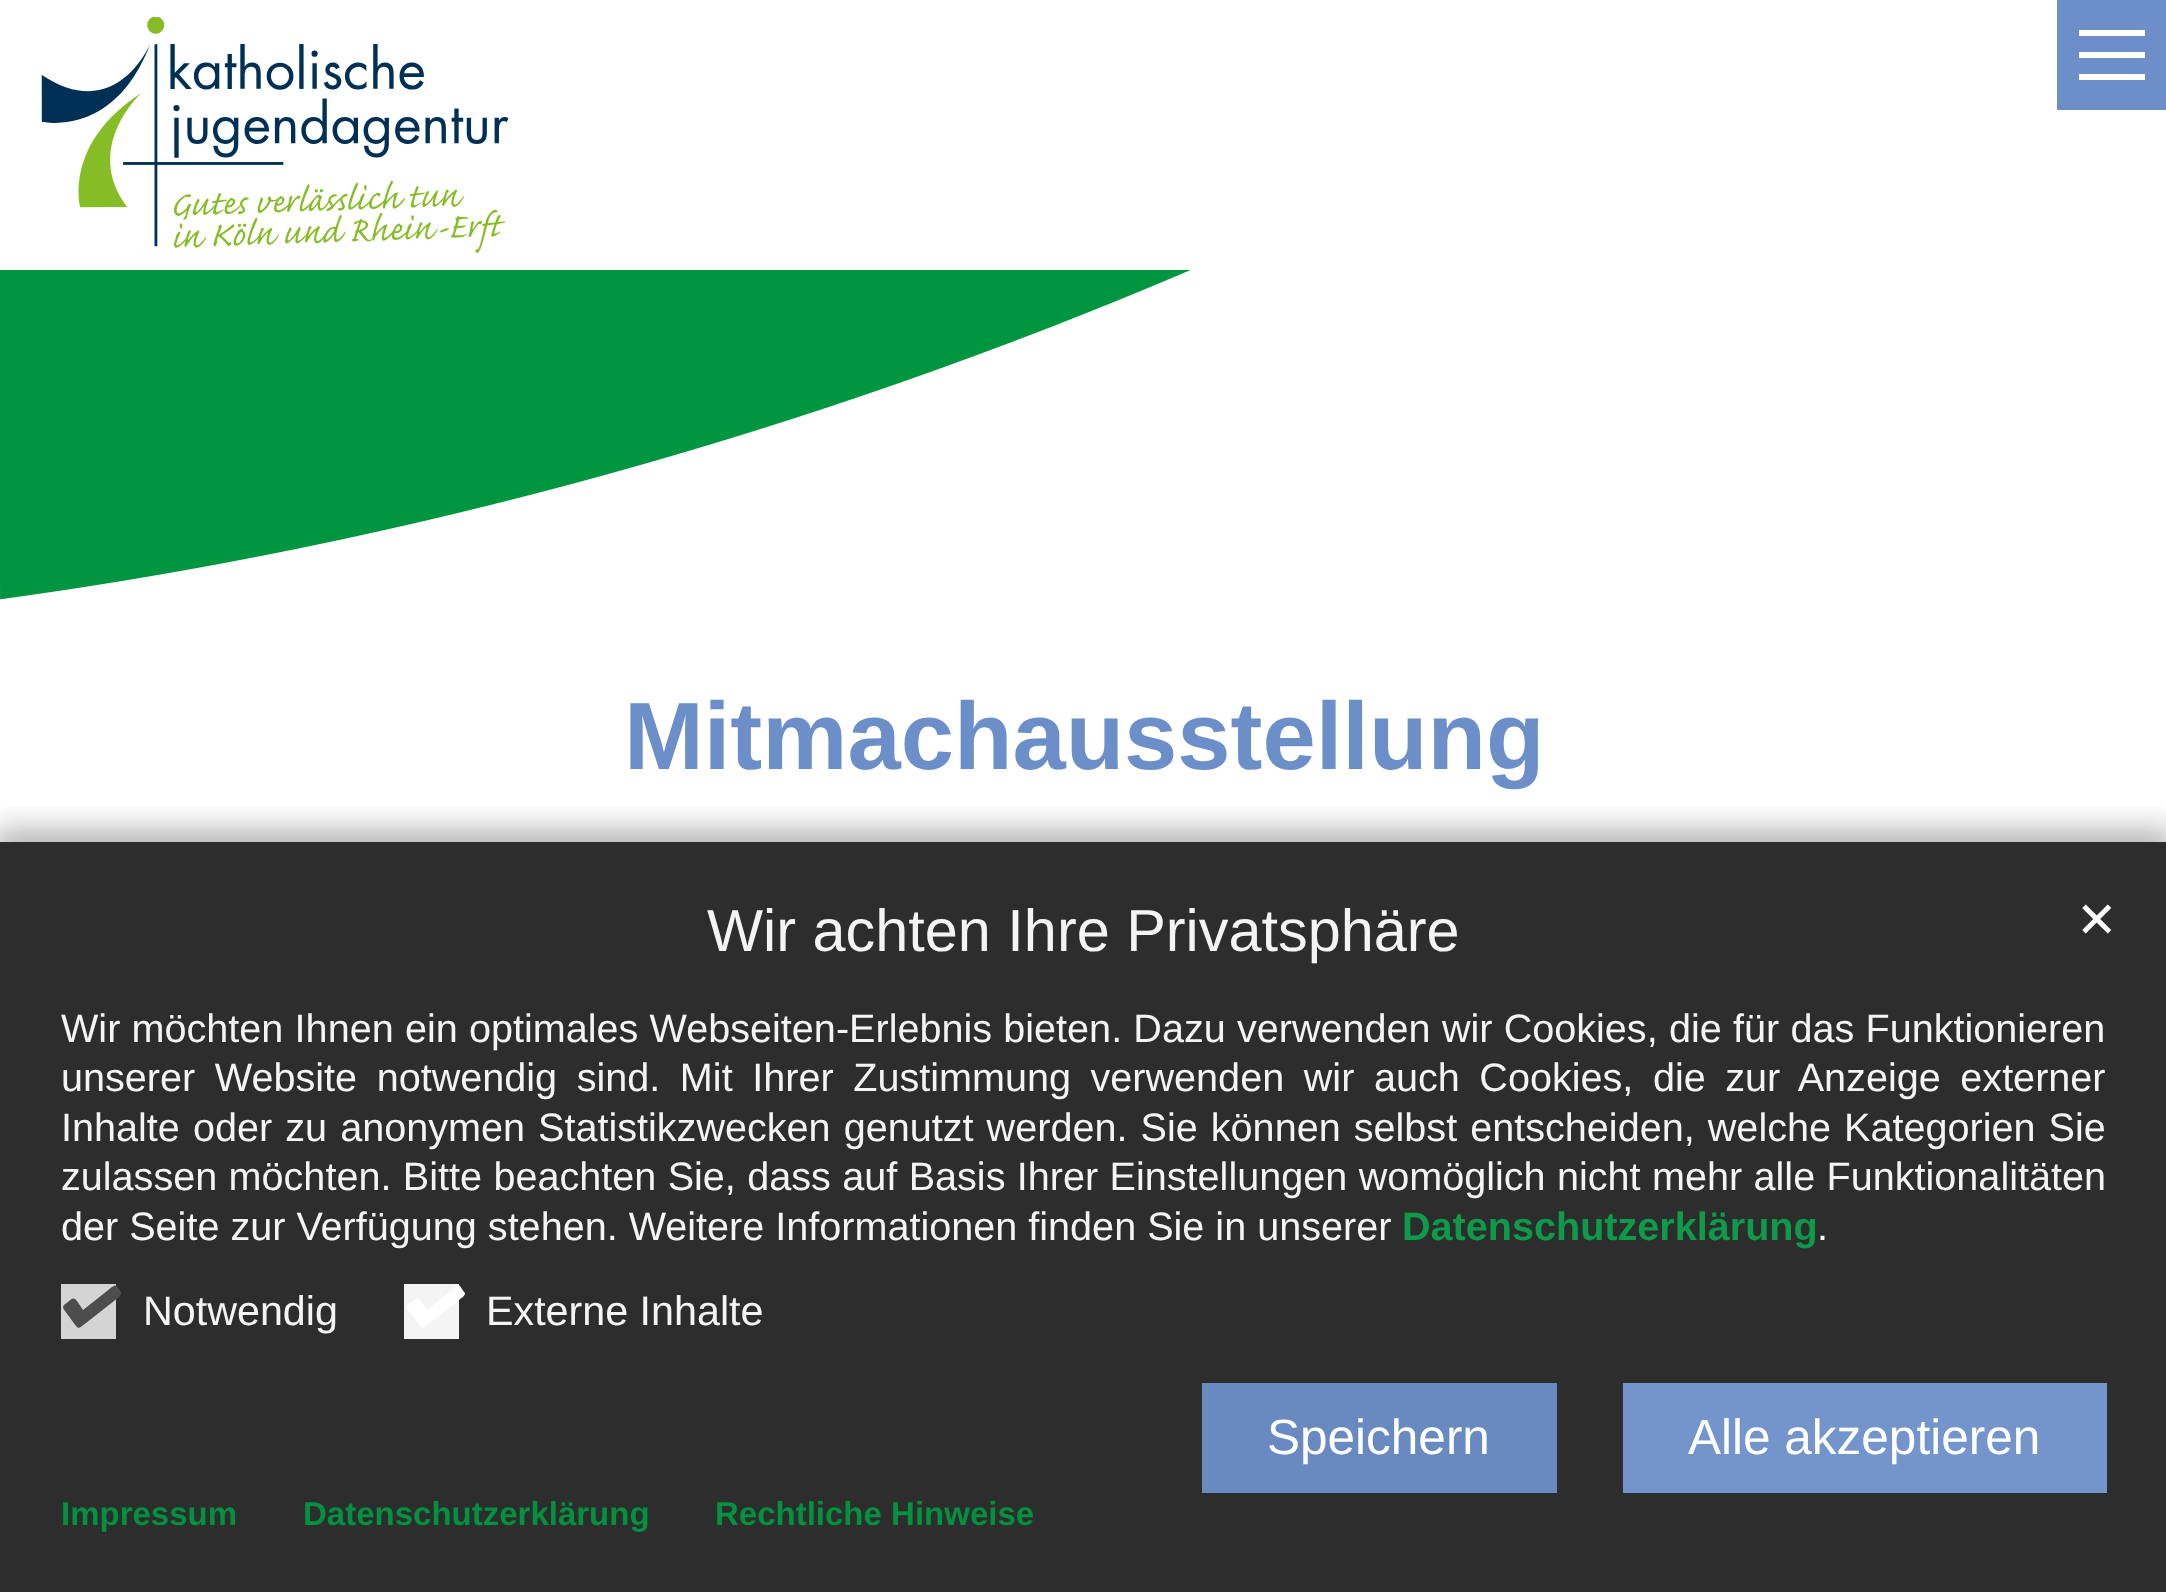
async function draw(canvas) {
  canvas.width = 2166
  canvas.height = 1592
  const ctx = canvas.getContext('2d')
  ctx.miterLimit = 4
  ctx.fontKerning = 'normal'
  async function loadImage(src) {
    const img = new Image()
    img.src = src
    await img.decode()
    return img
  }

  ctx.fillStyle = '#fff'
  ctx.fillRect(0, 0, 2166, 1592)
  ctx.drawImage(await loadImage('image0.png'), 41, 17, 468, 236)
  ctx.fillStyle = '#6d8fc9'
  ctx.fillRect(2057, 0, 109, 110)
  ctx.fillStyle = '#fff'
  ctx.fillRect(2079, 52, 66, 6)
  ctx.fillRect(2079, 30, 66, 6)
  ctx.fillRect(2079, 74, 66, 6)
  ctx.drawImage(await loadImage('image1.png'), 0, 270, 1191, 330)
  ctx.font = 'bold 95.75px Liberation Sans'
  ctx.fillStyle = '#6d8fc9'
  ctx.fillText('Mitmachausstellung', 624, 769)
  ctx.save()
  ctx.beginPath()
  ctx.rect(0, 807, 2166, 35)
  ctx.clip()
  ctx.fillStyle = '#00000047'
  ctx.filter = 'blur(14px)'
  ctx.beginPath()
  ctx.rect(-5, 828, 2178, 762)
  ctx.fill()
  ctx.filter = 'none'
  ctx.restore()
  ctx.fillStyle = '#222222f2'
  ctx.fillRect(0, 842, 2166, 750)
  ctx.font = '59.4px Liberation Sans'
  ctx.fillStyle = '#f4f4f4'
  ctx.fillText('Wir achten Ihre Privatsphäre', 707, 951)
  ctx.font = '49.5px DejaVu Sans'
  ctx.fillStyle = '#fff'
  ctx.fillText('✕', 2076, 937)
  ctx.wordSpacing = '0.25px'
  ctx.font = '39.6px Liberation Sans'
  ctx.fillStyle = '#f4f4f4'
  ctx.fillText('Wir möchten Ihnen ein optimales Webseiten-Erlebnis bieten. Dazu verwenden wir Cookies, die für das Funktionieren', 61, 1042)
  ctx.wordSpacing = '8.6px'
  ctx.fillText('unserer Website notwendig sind. Mit Ihrer Zustimmung verwenden wir auch Cookies, die zur Anzeige externer', 61, 1091)
  ctx.wordSpacing = '2.1px'
  ctx.fillText('Inhalte oder zu anonymen Statistikzwecken genutzt werden. Sie können selbst entscheiden, welche Kategorien Sie', 61, 1141)
  ctx.wordSpacing = '0.4px'
  ctx.fillText('zulassen möchten. Bitte beachten Sie, dass auf Basis Ihrer Einstellungen womöglich nicht mehr alle Funktionalitäten', 61, 1190)
  ctx.wordSpacing = '0px'
  ctx.fillText('der Seite zur Verfügung stehen. Weitere Informationen finden Sie in unserer', 61, 1240)
  ctx.font = 'bold 39.6px Liberation Sans'
  ctx.fillStyle = '#0d9b4a'
  ctx.fillText('Datenschutzerklärung', 1402, 1240)
  ctx.font = '39.6px Liberation Sans'
  ctx.fillStyle = '#fff'
  ctx.fillText('.', 1817, 1240)
  ctx.fillStyle = '#ddddddf2'
  ctx.fillRect(61, 1284, 55, 55)
  ctx.fillStyle = '#4d4d4d'
  ctx.beginPath()
  ctx.moveTo(121, 1292)
  ctx.lineTo(121, 1293)
  ctx.bezierCurveTo(121, 1297, 116, 1299, 114, 1301)
  ctx.lineTo(86, 1323)
  ctx.bezierCurveTo(78, 1329, 79, 1330, 73, 1322)
  ctx.lineTo(65, 1311)
  ctx.bezierCurveTo(61, 1306, 64, 1305, 68, 1302)
  ctx.bezierCurveTo(72, 1298, 74, 1297, 77, 1301)
  ctx.lineTo(83, 1310)
  ctx.lineTo(107, 1291)
  ctx.bezierCurveTo(109, 1290, 114, 1284, 117, 1286)
  ctx.closePath()
  ctx.fill()
  ctx.font = '41.25px Liberation Sans'
  ctx.fillStyle = '#f4f4f4'
  ctx.fillText('Notwendig', 143, 1325)
  ctx.fillStyle = '#fffffff2'
  ctx.fillRect(404, 1284, 55, 55)
  ctx.fillStyle = '#fff'
  ctx.beginPath()
  ctx.moveTo(464, 1292)
  ctx.lineTo(465, 1293)
  ctx.bezierCurveTo(465, 1297, 459, 1299, 458, 1301)
  ctx.lineTo(430, 1323)
  ctx.bezierCurveTo(422, 1329, 423, 1330, 417, 1322)
  ctx.lineTo(409, 1311)
  ctx.bezierCurveTo(405, 1306, 407, 1305, 412, 1302)
  ctx.bezierCurveTo(416, 1298, 417, 1297, 421, 1301)
  ctx.lineTo(427, 1310)
  ctx.lineTo(451, 1291)
  ctx.bezierCurveTo(452, 1290, 457, 1284, 460, 1286)
  ctx.closePath()
  ctx.fill()
  ctx.fillStyle = '#f4f4f4'
  ctx.fillText('Externe Inhalte', 486, 1325)
  ctx.fillStyle = '#6d8fc9f2'
  ctx.fillRect(1202, 1383, 355, 110)
  ctx.font = '49.5px Liberation Sans'
  ctx.fillStyle = '#fff'
  ctx.fillText('Speichern', 1267, 1454)
  ctx.fillStyle = '#7495cc'
  ctx.fillRect(1623, 1383, 484, 110)
  ctx.fillStyle = '#fff'
  ctx.fillText('Alle akzeptieren', 1688, 1454)
  ctx.font = 'bold 33px Liberation Sans'
  ctx.fillStyle = '#02913f'
  ctx.fillText('Impressum', 61, 1525)
  ctx.fillText('Datenschutzerklärung', 303, 1525)
  ctx.fillText('Rechtliche Hinweise', 715, 1525)
}

draw(document.querySelector('canvas'))
